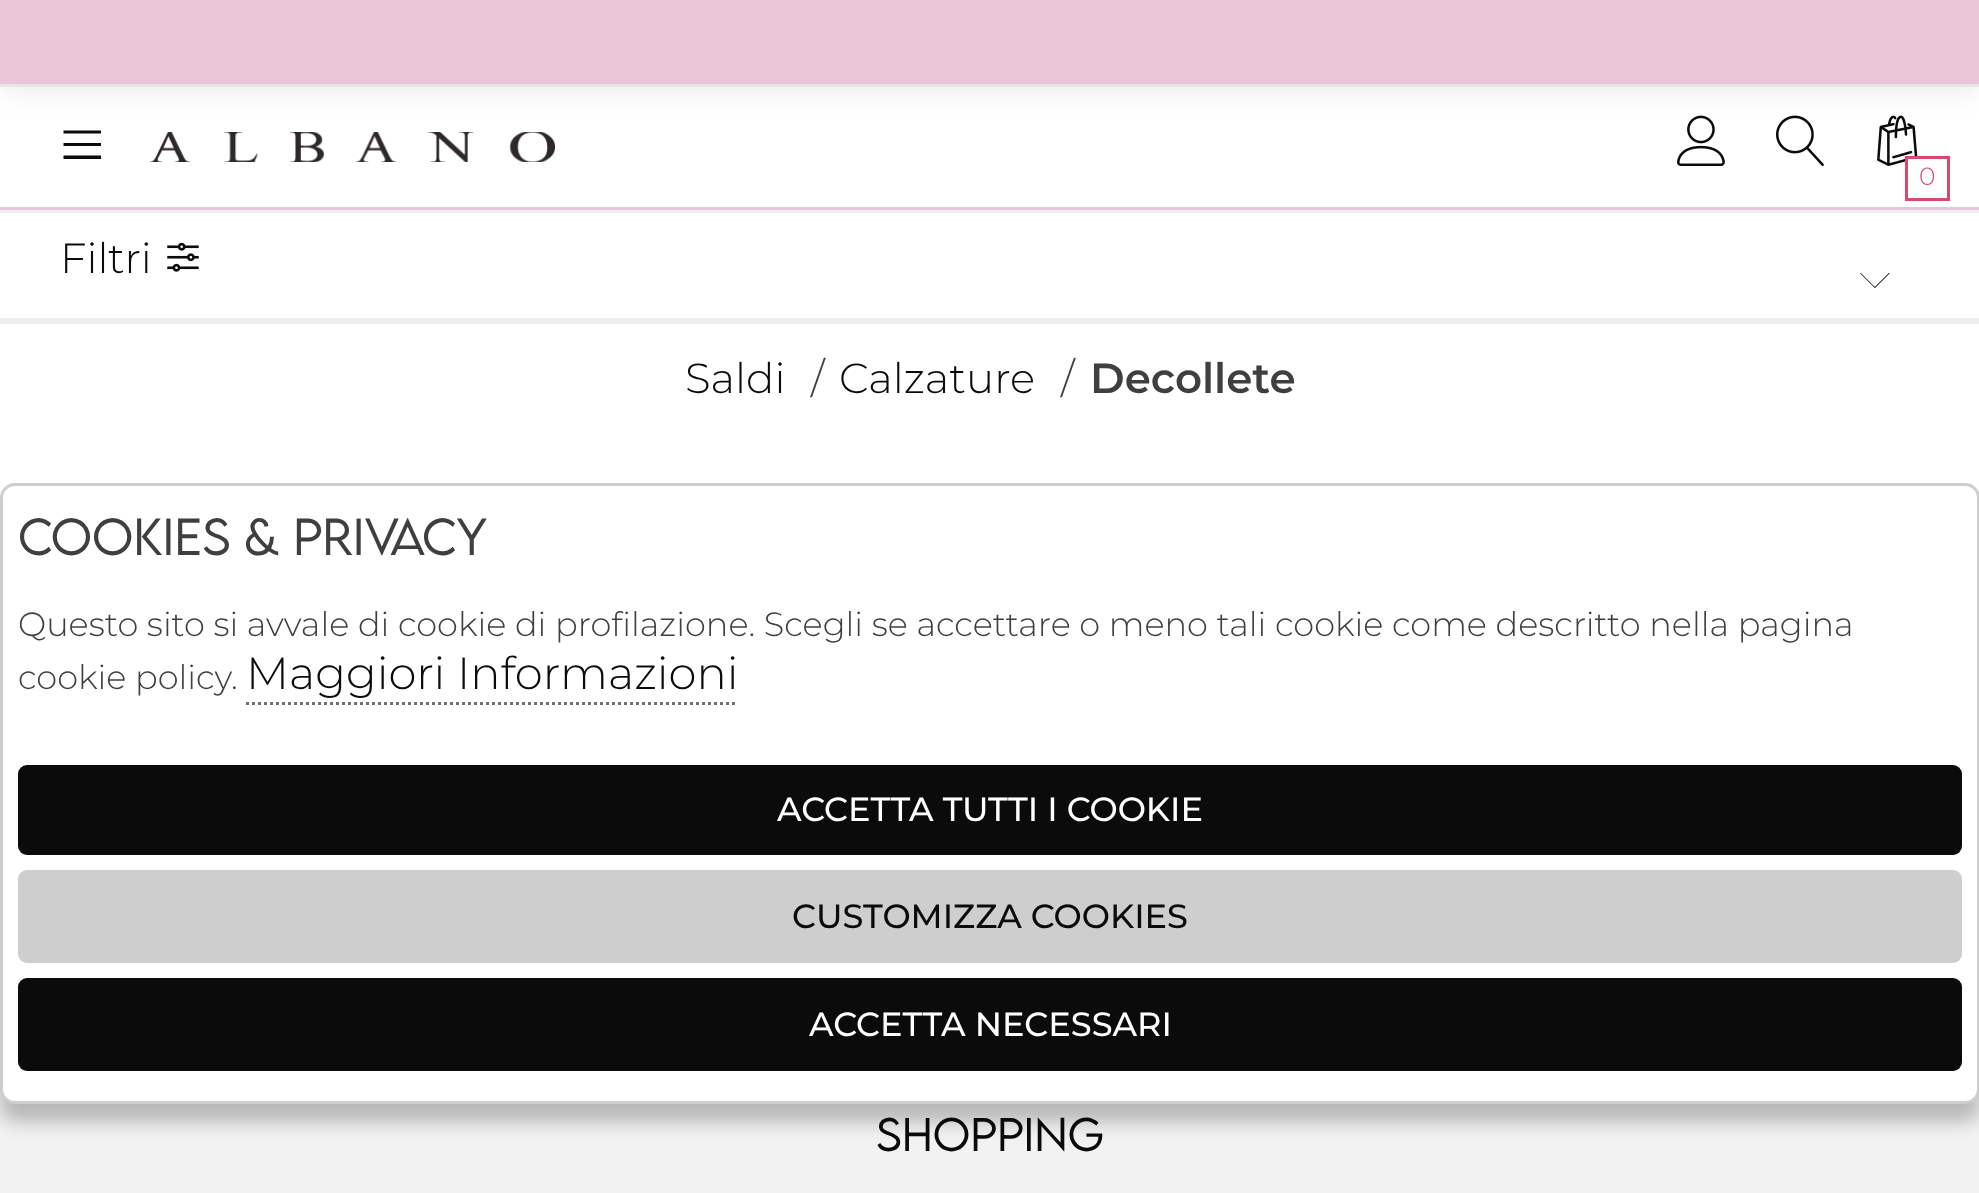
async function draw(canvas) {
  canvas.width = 1979
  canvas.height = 1193
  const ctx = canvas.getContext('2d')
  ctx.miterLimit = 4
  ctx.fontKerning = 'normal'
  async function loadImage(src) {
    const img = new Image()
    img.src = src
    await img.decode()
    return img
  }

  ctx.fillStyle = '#fff'
  ctx.fillRect(0, 0, 1979, 1193)
  ctx.fillStyle = '#eac5d7'
  ctx.fillRect(0, 207, 1979, 3)
  ctx.fillStyle = '#0b0b0b1a'
  ctx.filter = 'blur(15px)'
  ctx.beginPath()
  ctx.rect(0, 0, 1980, 87)
  ctx.fill()
  ctx.filter = 'none'
  ctx.fillStyle = '#eac5d7'
  ctx.fillRect(0, 0, 1979, 84)
  ctx.fillStyle = '#e6e6e6'
  ctx.fillRect(0, 84, 1979, 3)
  ctx.fillStyle = '#0b0b0b'
  ctx.beginPath()
  ctx.moveTo(63.5, 130.5)
  ctx.lineTo(63.5, 133.5)
  ctx.lineTo(101, 133.5)
  ctx.lineTo(101, 130.5)
  ctx.closePath()
  ctx.moveTo(63.5, 143)
  ctx.lineTo(63.5, 146)
  ctx.lineTo(101, 146)
  ctx.lineTo(101, 143)
  ctx.closePath()
  ctx.moveTo(63.5, 155.5)
  ctx.lineTo(63.5, 159)
  ctx.lineTo(101, 159)
  ctx.lineTo(101, 155.5)
  ctx.closePath()
  ctx.fill()
  ctx.drawImage(await loadImage('image0.png'), 150, 132, 405, 30)
  ctx.drawImage(await loadImage('image1.png'), 1677, 115, 48, 51)
  ctx.drawImage(await loadImage('image2.png'), 1776, 115, 48, 51)
  ctx.drawImage(await loadImage('image3.png'), 1877, 115, 41, 51)
  ctx.fillStyle = '#fff'
  ctx.fillRect(1908, 159, 6, 2)
  ctx.strokeStyle = '#d64a70'
  ctx.lineWidth = 3
  ctx.strokeRect(1906.5, 157.5, 42, 42)
  ctx.font = '300 25px Montserrat'
  ctx.fillStyle = '#d64a70'
  ctx.fillText('0', 1919, 185)
  ctx.fillStyle = '#eee'
  ctx.fillRect(0, 210, 1979, 3)
  ctx.fillRect(0, 318, 1979, 6)
  ctx.font = '300 42px Montserrat'
  ctx.fillStyle = '#0b0b0b'
  ctx.fillText('Filtri', 60, 273)
  ctx.drawImage(await loadImage('image4.png'), 167, 242, 32, 30)
  ctx.drawImage(await loadImage('image5.png'), 1860, 273, 30, 15)
  ctx.fillText('Saldi', 685, 393)
  ctx.fillStyle = '#403f3f'
  ctx.fillText('/', 811, 393)
  ctx.fillStyle = '#0b0b0b'
  ctx.fillText('Calzature', 839, 393)
  ctx.fillStyle = '#403f3f'
  ctx.fillText('/', 1061, 393)
  ctx.font = '600 42px Montserrat'
  ctx.fillText('Decollete', 1090, 393)
  ctx.fillStyle = '#f2f2f2'
  ctx.fillRect(0, 1089, 1979, 104)
  ctx.font = '300 42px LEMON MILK'
  ctx.fillStyle = '#0b0b0b'
  ctx.fillText('SHOPPING', 876, 1151)
  ctx.fillStyle = '#0b0b0b40'
  ctx.filter = 'blur(9px)'
  ctx.beginPath()
  ctx.roundRect(0, 501, 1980, 621, 15)
  ctx.fill()
  ctx.filter = 'none'
  ctx.fillStyle = '#fff'
  ctx.beginPath()
  ctx.roundRect(1.5, 484.5, 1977, 618, 13.5)
  ctx.fill()
  ctx.strokeStyle = '#cecece'
  ctx.stroke()
  ctx.font = '300 46.25px LEMON MILK'
  ctx.fillStyle = '#403f3f'
  ctx.fillText('Cookies & Privacy', 18, 555)
  ctx.font = '300 33.6px Montserrat'
  ctx.fillText('Questo sito si avvale di cookie di profilazione. Scegli se accettare o meno tali cookie come descritto nella pagina', 18, 636)
  ctx.fillText('cookie policy.', 18, 689)
  ctx.font = '300 45px Montserrat'
  ctx.fillStyle = '#0b0b0b'
  ctx.fillText('Maggiori Informazioni', 246, 689)
  ctx.beginPath()
  ctx.moveTo(246, 703.5)
  ctx.lineTo(738, 703.5)
  ctx.strokeStyle = '#707070'
  ctx.setLineDash([3, 3])
  ctx.stroke()
  ctx.beginPath()
  ctx.roundRect(18, 765, 1944, 90, 9)
  ctx.fill()
  ctx.font = '500 33.6px Montserrat'
  ctx.fillStyle = '#fff'
  ctx.fillText('ACCETTA TUTTI I COOKIE', 777, 821)
  ctx.fillStyle = '#cecece'
  ctx.beginPath()
  ctx.roundRect(18, 870, 1944, 93, 9)
  ctx.fill()
  ctx.fillStyle = '#0b0b0b'
  ctx.fillText('CUSTOMIZZA COOKIES', 792, 928)
  ctx.beginPath()
  ctx.roundRect(18, 978, 1944, 93, 9)
  ctx.fill()
  ctx.fillStyle = '#fff'
  ctx.fillText('ACCETTA NECESSARI', 809, 1036)
}

draw(document.querySelector('canvas'))
